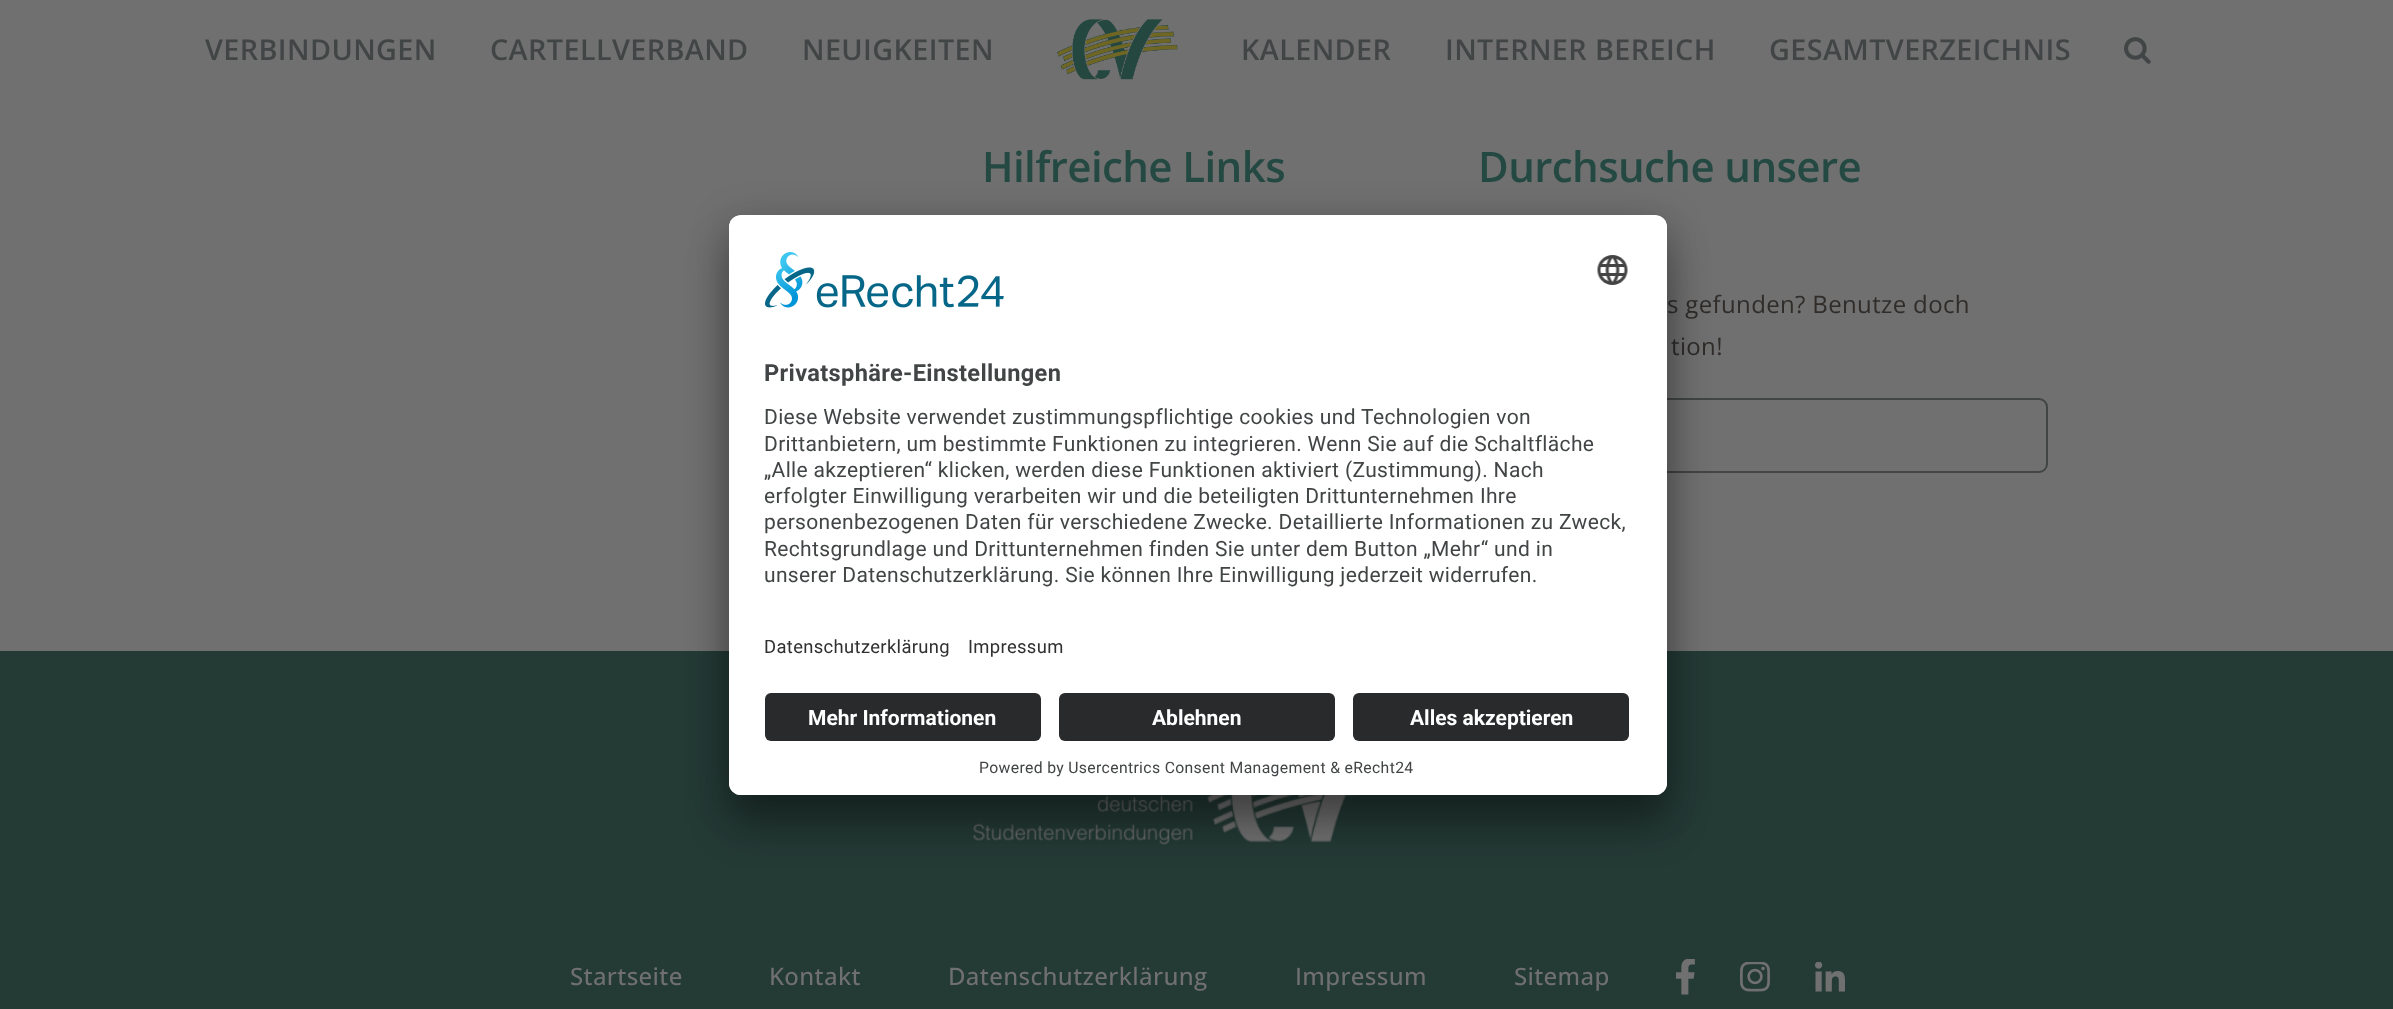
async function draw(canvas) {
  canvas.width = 2393
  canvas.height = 1009
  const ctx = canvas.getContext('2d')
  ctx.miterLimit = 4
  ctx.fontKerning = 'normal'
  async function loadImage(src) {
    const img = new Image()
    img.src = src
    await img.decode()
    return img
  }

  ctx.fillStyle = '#707070'
  ctx.fillRect(0, 0, 2393, 1009)
  ctx.letterSpacing = '0.4px'
  ctx.font = '600 28.75px Open Sans'
  ctx.fillStyle = '#424546'
  ctx.fillText('VERBINDUNGEN', 205, 60)
  ctx.fillText('CARTELLVERBAND', 490, 60)
  ctx.fillText('NEUIGKEITEN', 802, 60)
  ctx.drawImage(await loadImage('image0.png'), 1057, 19, 121, 61)
  ctx.fillText('KALENDER', 1241, 60)
  ctx.fillText('INTERNER BEREICH', 1445, 60)
  ctx.fillText('GESAMTVERZEICHNIS', 1769, 60)
  ctx.drawImage(await loadImage('image1.png'), 2124, 37, 27, 27)
  ctx.letterSpacing = '-0.6px'
  ctx.font = '600 42px Open Sans'
  ctx.fillStyle = '#244942'
  ctx.fillText('Hilfreiche Links', 982, 182)
  ctx.fillText('Durchsuche unsere', 1478, 182)
  ctx.letterSpacing = '0.35px'
  ctx.font = '24px Open Sans'
  ctx.fillStyle = '#2f2c2a'
  ctx.fillText('s gefunden? Benutze doch', 1667, 313)
  ctx.fillText('tion!', 1671, 355)
  ctx.beginPath()
  ctx.roundRect(1479, 399, 568, 73, 8)
  ctx.strokeStyle = '#424546'
  ctx.lineWidth = 2
  ctx.stroke()
  ctx.fillStyle = '#243a35'
  ctx.fillRect(0, 651, 2393, 358)
  ctx.drawImage(await loadImage('image2.png'), 973, 795, 385, 51)
  ctx.font = '500 24px Open Sans'
  ctx.fillStyle = '#707070'
  ctx.fillText('Startseite', 570, 985)
  ctx.fillText('Kontakt', 769, 985)
  ctx.fillText('Datenschutzerklärung', 948, 985)
  ctx.fillText('Impressum', 1295, 985)
  ctx.fillText('Sitemap', 1514, 985)
  ctx.drawImage(await loadImage('image3.png'), 1676, 959, 19, 36)
  ctx.drawImage(await loadImage('image4.png'), 1740, 962, 30, 30)
  ctx.drawImage(await loadImage('image5.png'), 1815, 962, 30, 30)
  ctx.fillStyle = '#0000004d'
  ctx.filter = 'blur(21px)'
  ctx.beginPath()
  ctx.roundRect(729, 245, 938, 580, 12)
  ctx.fill()
  ctx.filter = 'none'
  ctx.fillStyle = '#00000038'
  ctx.filter = 'blur(19.5px)'
  ctx.beginPath()
  ctx.roundRect(729, 222, 938, 581, 12)
  ctx.fill()
  ctx.filter = 'none'
  ctx.fillStyle = '#fff'
  ctx.beginPath()
  ctx.roundRect(729, 215, 938, 580, 12)
  ctx.fill()
  ctx.save()
  ctx.beginPath()
  ctx.roundRect(729, 215, 938, 580, 12)
  ctx.clip()
  ctx.beginPath()
  ctx.roundRect(729, 215, 938, 466, [12, 12, 0, 0])
  ctx.clip()
  ctx.fillRect(729, 216, 938, 465)
  ctx.restore()
  ctx.drawImage(await loadImage('image6.png'), 765, 252, 239, 56)
  ctx.drawImage(await loadImage('image7.png'), 1597, 255, 31, 30)
  ctx.font = 'bold 23.6px Roboto'
  ctx.fillStyle = '#424546'
  ctx.fillText('Privatsphäre-Einstellungen', 764, 381)
  ctx.font = '21px Roboto'
  ctx.fillText('Diese Website verwendet zustimmungspflichtige cookies und Technologien von', 764, 424)
  ctx.fillText('Drittanbietern, um bestimmte Funktionen zu integrieren. Wenn Sie auf die Schaltfläche', 764, 451)
  ctx.fillText('„Alle akzeptieren“ klicken, werden diese Funktionen aktiviert (Zustimmung). Nach', 764, 477)
  ctx.fillText('erfolgter Einwilligung verarbeiten wir und die beteiligten Drittunternehmen Ihre', 764, 503)
  ctx.fillText('personenbezogenen Daten für verschiedene Zwecke. Detaillierte Informationen zu Zweck,', 764, 529)
  ctx.fillText('Rechtsgrundlage und Drittunternehmen finden Sie unter dem Button „Mehr“ und in', 764, 556)
  ctx.fillText('unserer Datenschutzerklärung. Sie können Ihre Einwilligung jederzeit widerrufen.', 764, 582)
  ctx.font = '18.4px Roboto'
  ctx.fillStyle = '#303030'
  ctx.fillText('Datenschutzerklärung', 764, 653)
  ctx.fillText('Impressum', 968, 653)
  ctx.fillStyle = '#fff'
  ctx.beginPath()
  ctx.roundRect(729, 681, 938, 114, [0, 0, 12, 12])
  ctx.fill()
  ctx.fillStyle = '#292a2b'
  ctx.beginPath()
  ctx.roundRect(765, 693, 276, 48, 6)
  ctx.fill()
  ctx.letterSpacing = '0px'
  ctx.font = 'bold 21px Roboto'
  ctx.fillStyle = '#fff'
  ctx.fillText('Mehr Informationen', 808, 725)
  ctx.fillStyle = '#292a2b'
  ctx.beginPath()
  ctx.roundRect(1059, 693, 276, 48, 6)
  ctx.fill()
  ctx.fillStyle = '#fff'
  ctx.fillText('Ablehnen', 1152, 725)
  ctx.fillStyle = '#292a2b'
  ctx.beginPath()
  ctx.roundRect(1353, 693, 276, 48, 6)
  ctx.fill()
  ctx.fillStyle = '#fff'
  ctx.fillText('Alles akzeptieren', 1410, 725)
  ctx.letterSpacing = '0.35px'
  ctx.font = '15.75px Roboto'
  ctx.fillStyle = '#424546'
  ctx.fillText('Powered by Usercentrics Consent Management & eRecht24', 979, 773)
}

draw(document.querySelector('canvas'))
